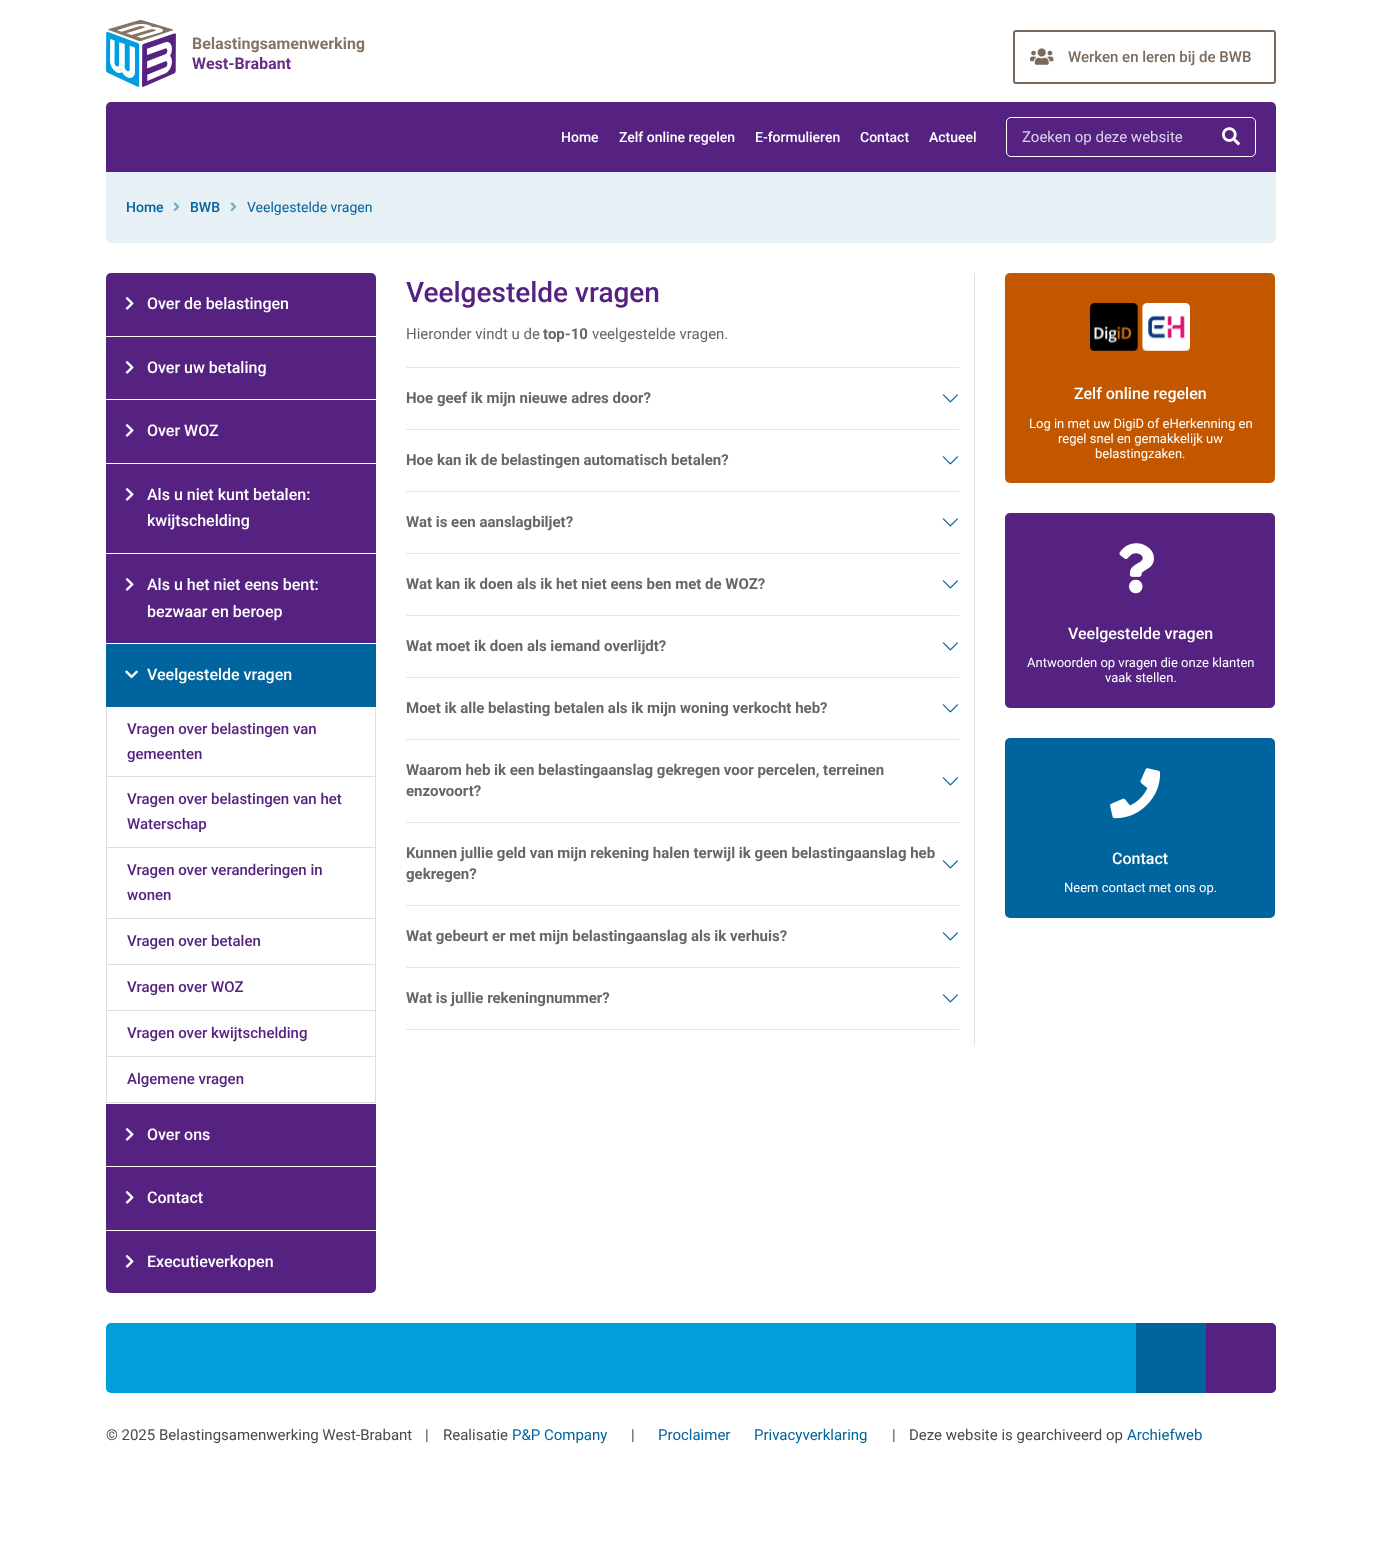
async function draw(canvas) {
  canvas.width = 1381
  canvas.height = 1557
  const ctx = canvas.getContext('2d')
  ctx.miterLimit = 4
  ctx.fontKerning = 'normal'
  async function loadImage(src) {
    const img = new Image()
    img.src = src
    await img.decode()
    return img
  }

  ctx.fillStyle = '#fff'
  ctx.fillRect(0, 0, 1381, 1557)
  ctx.drawImage(await loadImage('image0.png'), 106, 20, 259, 67)
  ctx.beginPath()
  ctx.roundRect(1014, 31, 261, 52, 2)
  ctx.strokeStyle = '#7b6a5b'
  ctx.lineWidth = 2
  ctx.stroke()
  ctx.drawImage(await loadImage('image1.png'), 1030, 48, 24, 17)
  ctx.font = '500 15px Roboto'
  ctx.fillStyle = '#7b6a5b'
  ctx.fillText('Werken en leren bij de BWB', 1068, 62)
  ctx.fillStyle = '#562281'
  ctx.beginPath()
  ctx.roundRect(106, 102, 1170, 70, [5, 5, 0, 0])
  ctx.fill()
  ctx.font = '500 14px Roboto'
  ctx.fillStyle = '#fff'
  ctx.fillText('Home', 561, 142)
  ctx.fillText('Zelf online regelen', 619, 142)
  ctx.fillText('E-formulieren', 755, 142)
  ctx.fillText('Contact', 860, 142)
  ctx.fillText('Actueel', 929, 142)
  ctx.beginPath()
  ctx.roundRect(1006.5, 117.5, 249, 39, 4.5)
  ctx.strokeStyle = '#fff'
  ctx.lineWidth = 1
  ctx.stroke()
  ctx.font = '15px Roboto'
  ctx.fillStyle = '#ddd3e6'
  ctx.fillText('Zoeken op deze website', 1022, 142)
  ctx.drawImage(await loadImage('image2.png'), 1222, 127, 18, 19)
  ctx.fillStyle = '#e6f0f5'
  ctx.beginPath()
  ctx.roundRect(106, 172, 1170, 71, [0, 0, 5, 5])
  ctx.fill()
  ctx.font = '500 14px Roboto'
  ctx.fillStyle = '#00649e'
  ctx.fillText('Home', 126, 212)
  ctx.drawImage(await loadImage('image3.png'), 173, 202, 7, 9)
  ctx.fillText('BWB', 190, 212)
  ctx.drawImage(await loadImage('image3.png'), 230, 202, 7, 9)
  ctx.font = '14px Roboto'
  ctx.fillText('Veelgestelde vragen', 247, 212)
  ctx.fillStyle = '#562281'
  ctx.beginPath()
  ctx.roundRect(106, 273, 270, 63, [5, 5, 0, 0])
  ctx.fill()
  ctx.drawImage(await loadImage('image4.png'), 125, 297, 9, 13)
  ctx.font = '500 16px Roboto'
  ctx.fillStyle = '#fff'
  ctx.fillText('Over de belastingen', 147, 309)
  ctx.fillStyle = '#562281'
  ctx.fillRect(106, 337, 270, 62)
  ctx.drawImage(await loadImage('image4.png'), 125, 361, 9, 13)
  ctx.fillStyle = '#fff'
  ctx.fillText('Over uw betaling', 147, 373)
  ctx.fillStyle = '#562281'
  ctx.fillRect(106, 400, 270, 63)
  ctx.drawImage(await loadImage('image4.png'), 125, 424, 9, 13)
  ctx.fillStyle = '#fff'
  ctx.fillText('Over WOZ', 147, 436)
  ctx.fillStyle = '#562281'
  ctx.fillRect(106, 464, 270, 89)
  ctx.drawImage(await loadImage('image4.png'), 125, 488, 9, 13)
  ctx.fillStyle = '#fff'
  ctx.fillText('Als u niet kunt betalen:', 147, 500)
  ctx.fillText('kwijtschelding', 147, 526)
  ctx.fillStyle = '#562281'
  ctx.fillRect(106, 554, 270, 89)
  ctx.drawImage(await loadImage('image4.png'), 125, 578, 9, 13)
  ctx.fillStyle = '#fff'
  ctx.fillText('Als u het niet eens bent:', 147, 590)
  ctx.fillText('bezwaar en beroep', 147, 617)
  ctx.fillStyle = '#00649e'
  ctx.fillRect(106, 644, 270, 63)
  ctx.drawImage(await loadImage('image5.png'), 125, 670, 13, 9)
  ctx.fillStyle = '#fff'
  ctx.fillText('Veelgestelde vragen', 147, 680)
  ctx.fillStyle = '#e1ddd9'
  ctx.fillRect(375, 707, 1, 396)
  ctx.fillRect(106, 707, 1, 396)
  ctx.fillRect(107, 776, 268, 1)
  ctx.font = '500 15px Roboto'
  ctx.fillStyle = '#562281'
  ctx.fillText('Vragen over belastingen van', 127, 734)
  ctx.fillText('gemeenten', 127, 759)
  ctx.fillStyle = '#e1ddd9'
  ctx.fillRect(107, 847, 268, 1)
  ctx.fillStyle = '#562281'
  ctx.fillText('Vragen over belastingen van het', 127, 804)
  ctx.fillText('Waterschap', 127, 829)
  ctx.fillStyle = '#e1ddd9'
  ctx.fillRect(107, 918, 268, 1)
  ctx.fillStyle = '#562281'
  ctx.fillText('Vragen over veranderingen in', 127, 875)
  ctx.fillText('wonen', 127, 900)
  ctx.fillStyle = '#e1ddd9'
  ctx.fillRect(107, 964, 268, 1)
  ctx.fillStyle = '#562281'
  ctx.fillText('Vragen over betalen', 127, 946)
  ctx.fillStyle = '#e1ddd9'
  ctx.fillRect(107, 1010, 268, 1)
  ctx.fillStyle = '#562281'
  ctx.fillText('Vragen over WOZ', 127, 992)
  ctx.fillStyle = '#e1ddd9'
  ctx.fillRect(107, 1056, 268, 1)
  ctx.fillStyle = '#562281'
  ctx.fillText('Vragen over kwijtschelding', 127, 1038)
  ctx.fillStyle = '#e1ddd9'
  ctx.fillRect(107, 1102, 268, 1)
  ctx.fillStyle = '#562281'
  ctx.fillText('Algemene vragen', 127, 1084)
  ctx.fillRect(106, 1104, 270, 62)
  ctx.drawImage(await loadImage('image4.png'), 125, 1128, 9, 13)
  ctx.font = '500 16px Roboto'
  ctx.fillStyle = '#fff'
  ctx.fillText('Over ons', 147, 1140)
  ctx.fillStyle = '#562281'
  ctx.fillRect(106, 1167, 270, 63)
  ctx.drawImage(await loadImage('image4.png'), 125, 1191, 9, 13)
  ctx.fillStyle = '#fff'
  ctx.fillText('Contact', 147, 1203)
  ctx.fillStyle = '#562281'
  ctx.beginPath()
  ctx.roundRect(106, 1231, 270, 62, [0, 0, 5, 5])
  ctx.fill()
  ctx.drawImage(await loadImage('image4.png'), 125, 1255, 9, 13)
  ctx.fillStyle = '#fff'
  ctx.fillText('Executieverkopen', 147, 1267)
  ctx.fillStyle = '#e1ddd9'
  ctx.fillRect(974, 273, 1, 772)
  ctx.font = '500 28px Roboto'
  ctx.fillStyle = '#562281'
  ctx.fillText('Veelgestelde vragen', 406, 302)
  ctx.font = '15px Roboto'
  ctx.fillStyle = '#666'
  ctx.fillText('Hieronder vindt u de', 406, 339)
  ctx.font = 'bold 15px Roboto'
  ctx.fillText('top-10', 543, 339)
  ctx.font = '15px Roboto'
  ctx.fillText('veelgestelde vragen.', 592, 339)
  ctx.fillStyle = '#e6e6e6'
  ctx.fillRect(406, 367, 553, 1)
  ctx.font = 'bold 15px Roboto'
  ctx.fillStyle = '#666'
  ctx.fillText('Hoe geef ik mijn nieuwe adres door?', 406, 403)
  ctx.drawImage(await loadImage('image6.png'), 942, 394, 16, 9)
  ctx.fillStyle = '#e6e6e6'
  ctx.fillRect(406, 429, 553, 1)
  ctx.fillStyle = '#666'
  ctx.fillText('Hoe kan ik de belastingen automatisch betalen?', 406, 465)
  ctx.drawImage(await loadImage('image6.png'), 942, 456, 16, 9)
  ctx.fillStyle = '#e6e6e6'
  ctx.fillRect(406, 491, 553, 1)
  ctx.fillStyle = '#666'
  ctx.fillText('Wat is een aanslagbiljet?', 406, 527)
  ctx.drawImage(await loadImage('image6.png'), 942, 518, 16, 9)
  ctx.fillStyle = '#e6e6e6'
  ctx.fillRect(406, 553, 553, 1)
  ctx.fillStyle = '#666'
  ctx.fillText('Wat kan ik doen als ik het niet eens ben met de WOZ?', 406, 589)
  ctx.drawImage(await loadImage('image6.png'), 942, 580, 16, 9)
  ctx.fillStyle = '#e6e6e6'
  ctx.fillRect(406, 615, 553, 1)
  ctx.fillStyle = '#666'
  ctx.fillText('Wat moet ik doen als iemand overlijdt?', 406, 651)
  ctx.drawImage(await loadImage('image6.png'), 942, 642, 16, 9)
  ctx.fillStyle = '#e6e6e6'
  ctx.fillRect(406, 677, 553, 1)
  ctx.fillStyle = '#666'
  ctx.fillText('Moet ik alle belasting betalen als ik mijn woning verkocht heb?', 406, 713)
  ctx.drawImage(await loadImage('image6.png'), 942, 704, 16, 9)
  ctx.fillStyle = '#e6e6e6'
  ctx.fillRect(406, 739, 553, 1)
  ctx.fillStyle = '#666'
  ctx.fillText('Waarom heb ik een belastingaanslag gekregen voor percelen, terreinen', 406, 775)
  ctx.drawImage(await loadImage('image6.png'), 942, 777, 16, 9)
  ctx.fillText('enzovoort?', 406, 796)
  ctx.fillStyle = '#e6e6e6'
  ctx.fillRect(406, 822, 553, 1)
  ctx.fillStyle = '#666'
  ctx.fillText('Kunnen jullie geld van mijn rekening halen terwijl ik geen belastingaanslag heb', 406, 858)
  ctx.drawImage(await loadImage('image6.png'), 942, 860, 16, 9)
  ctx.fillText('gekregen?', 406, 879)
  ctx.fillStyle = '#e6e6e6'
  ctx.fillRect(406, 905, 553, 1)
  ctx.fillStyle = '#666'
  ctx.fillText('Wat gebeurt er met mijn belastingaanslag als ik verhuis?', 406, 941)
  ctx.drawImage(await loadImage('image6.png'), 942, 932, 16, 9)
  ctx.fillStyle = '#e6e6e6'
  ctx.fillRect(406, 967, 553, 1)
  ctx.fillRect(406, 1029, 553, 1)
  ctx.fillStyle = '#666'
  ctx.fillText('Wat is jullie rekeningnummer?', 406, 1003)
  ctx.drawImage(await loadImage('image6.png'), 942, 994, 16, 9)
  ctx.fillStyle = '#c25700'
  ctx.beginPath()
  ctx.roundRect(1005, 273, 270, 210, 5)
  ctx.fill()
  ctx.drawImage(await loadImage('image7.png'), 1090, 303, 100, 48)
  ctx.font = '500 16px Roboto'
  ctx.fillStyle = '#fff'
  ctx.fillText('Zelf online regelen', 1074, 399)
  ctx.font = '13px Roboto'
  ctx.fillText('Log in met uw DigiD of eHerkenning en', 1029, 428)
  ctx.fillText('regel snel en gemakkelijk uw', 1058, 443)
  ctx.fillText('belastingzaken.', 1095, 458)
  ctx.fillStyle = '#562281'
  ctx.beginPath()
  ctx.roundRect(1005, 513, 270, 195, 5)
  ctx.fill()
  ctx.drawImage(await loadImage('image8.png'), 1119, 543, 35, 51)
  ctx.font = '500 16px Roboto'
  ctx.fillStyle = '#fff'
  ctx.fillText('Veelgestelde vragen', 1068, 639)
  ctx.font = '13px Roboto'
  ctx.fillText('Antwoorden op vragen die onze klanten', 1027, 667)
  ctx.fillText('vaak stellen.', 1105, 682)
  ctx.fillStyle = '#00649e'
  ctx.beginPath()
  ctx.roundRect(1005, 738, 270, 180, 5)
  ctx.fill()
  ctx.drawImage(await loadImage('image9.png'), 1110, 768, 51, 51)
  ctx.font = '500 16px Roboto'
  ctx.fillStyle = '#fff'
  ctx.fillText('Contact', 1112, 864)
  ctx.font = '13px Roboto'
  ctx.fillText('Neem contact met ons op.', 1064, 892)
  ctx.fillStyle = '#009fda'
  ctx.beginPath()
  ctx.roundRect(106, 1323, 1170, 70, 5)
  ctx.fill()
  ctx.fillStyle = '#00649e'
  ctx.fillRect(1136, 1323, 70, 70)
  ctx.fillStyle = '#562281'
  ctx.beginPath()
  ctx.roundRect(1206, 1323, 70, 70, [0, 5, 5, 0])
  ctx.fill()
  ctx.font = '15px Roboto'
  ctx.fillStyle = '#4a4a4a'
  ctx.fillText('© 2025 Belastingsamenwerking West-Brabant', 106, 1440)
  ctx.fillText('|', 425, 1440)
  ctx.fillText('Realisatie', 443, 1440)
  ctx.fillStyle = '#00649e'
  ctx.fillText('P&P Company', 512, 1440)
  ctx.fillStyle = '#4a4a4a'
  ctx.fillText('|', 631, 1440)
  ctx.fillStyle = '#00649e'
  ctx.fillText('Proclaimer', 658, 1440)
  ctx.fillText('Privacyverklaring', 754, 1440)
  ctx.fillStyle = '#4a4a4a'
  ctx.fillText('|', 892, 1440)
  ctx.fillText('Deze website is gearchiveerd op', 909, 1440)
  ctx.fillStyle = '#00649e'
  ctx.fillText('Archiefweb', 1127, 1440)
}

draw(document.querySelector('canvas'))
